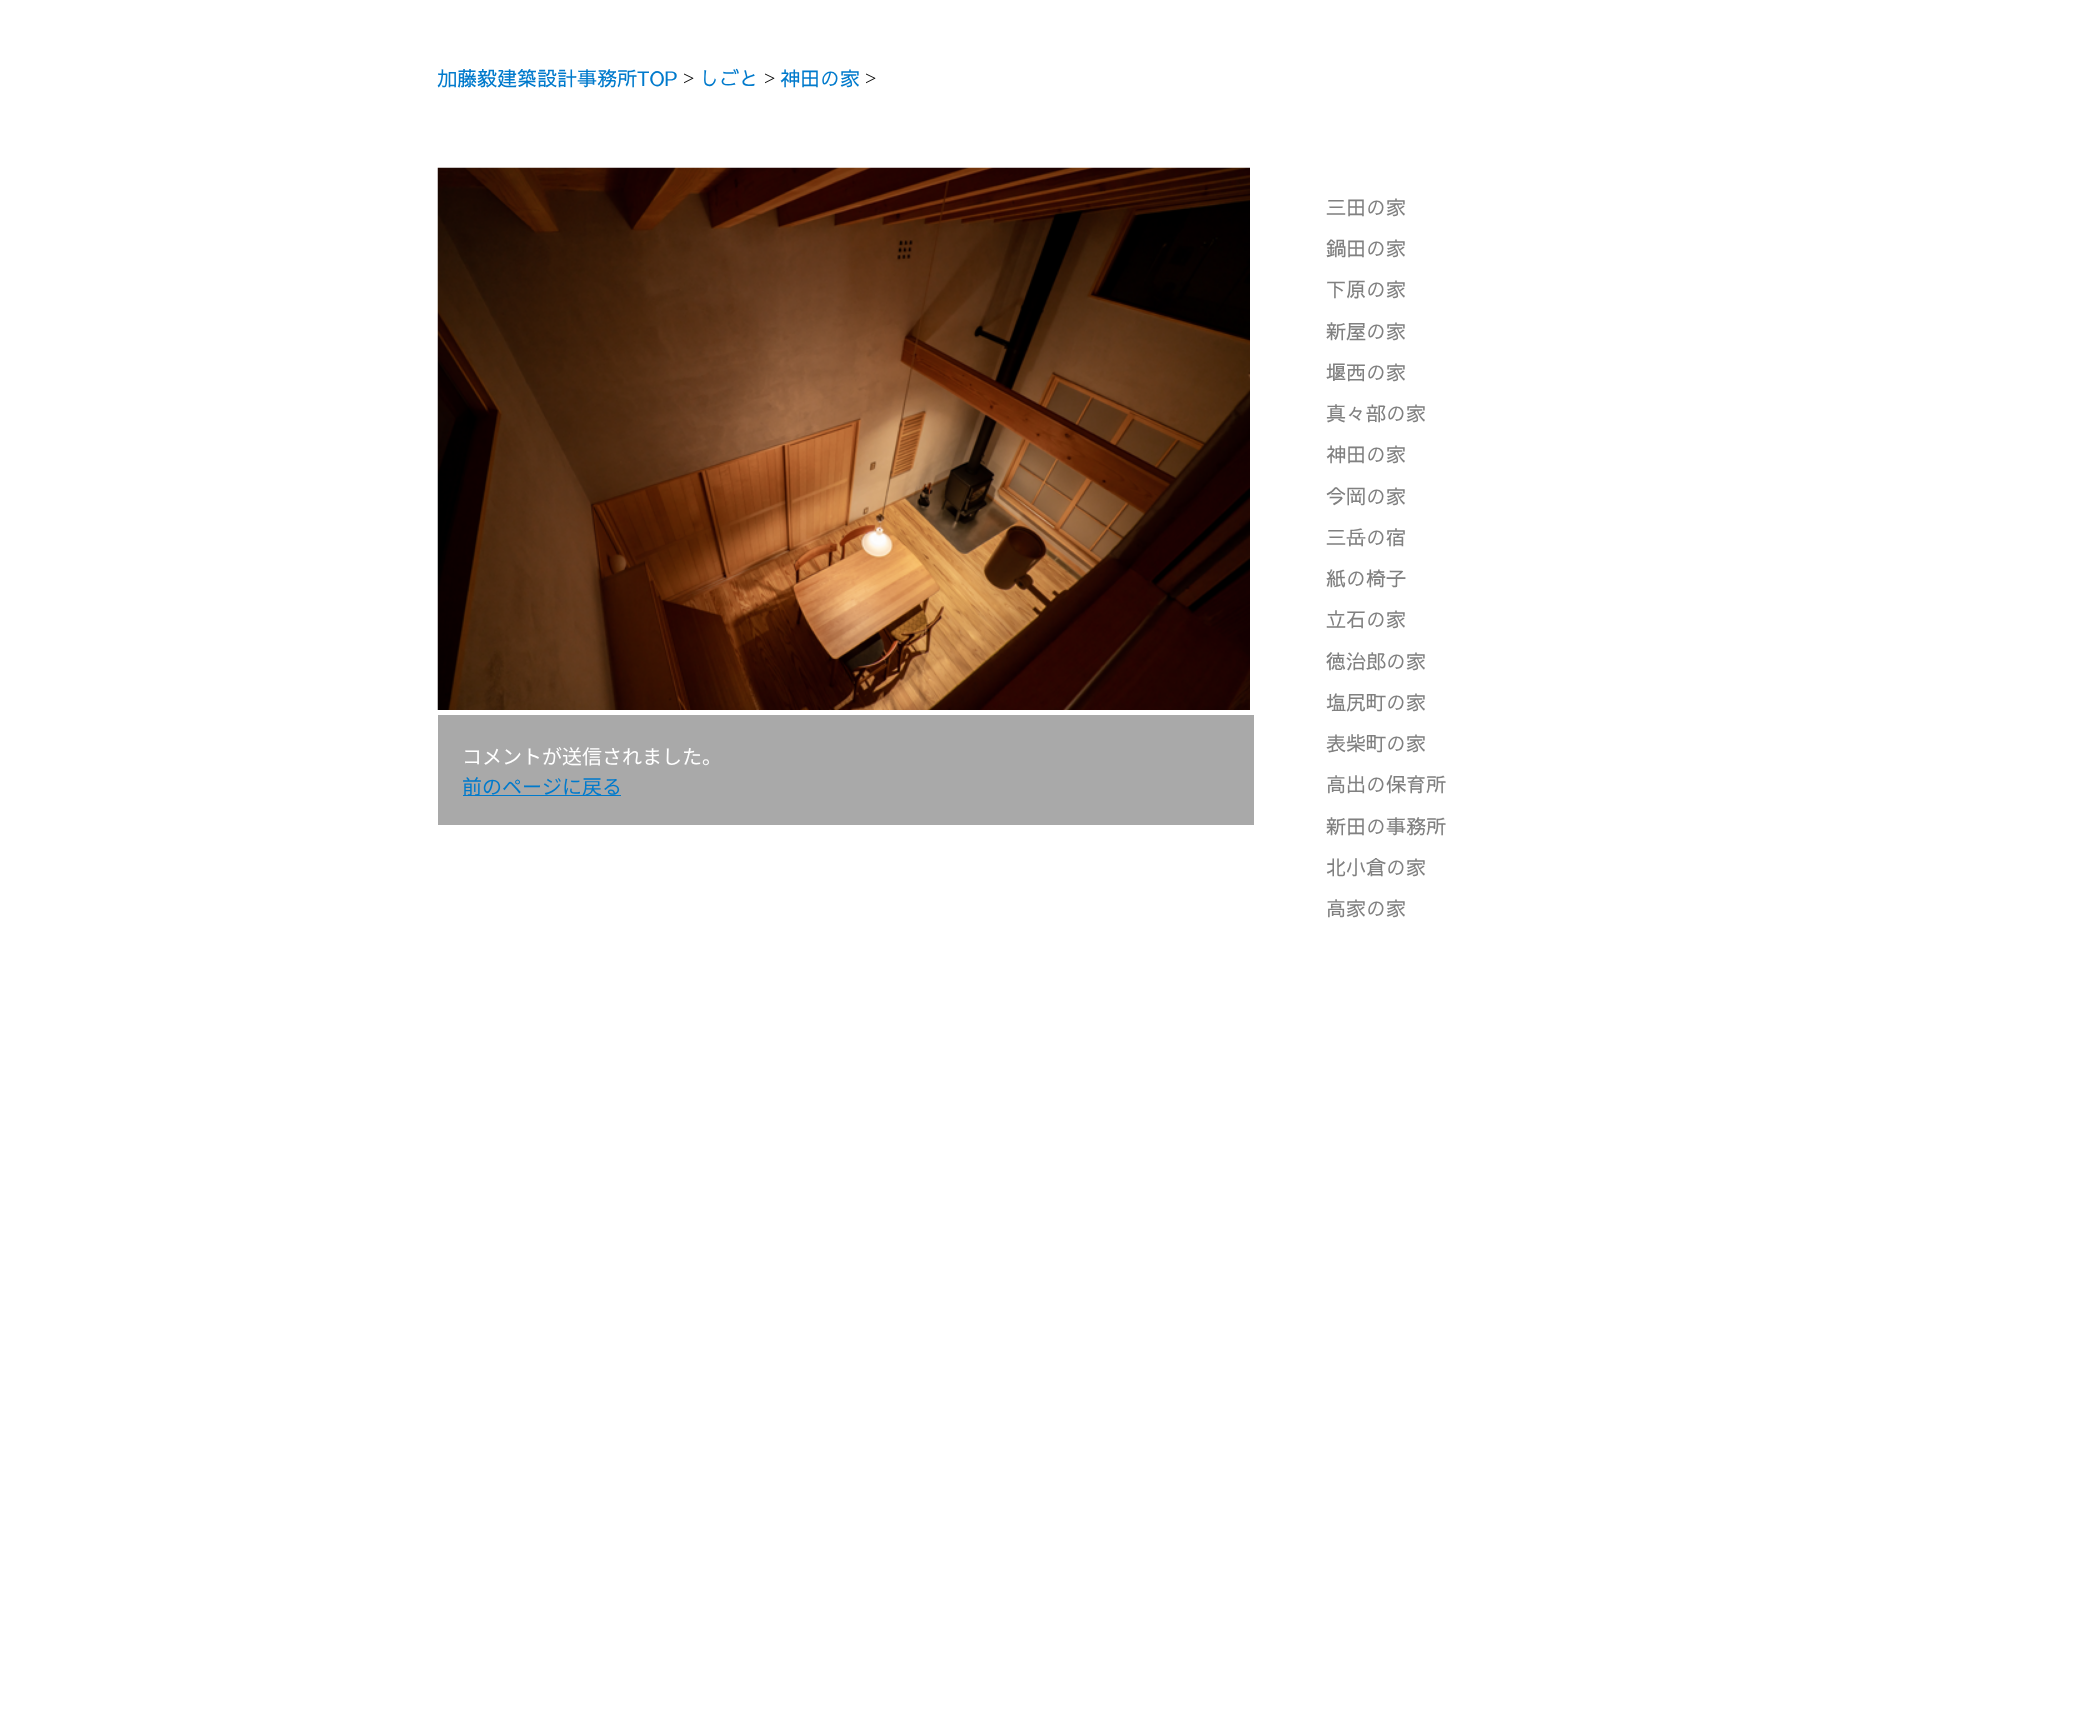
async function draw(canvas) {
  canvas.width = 2074
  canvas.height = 1733
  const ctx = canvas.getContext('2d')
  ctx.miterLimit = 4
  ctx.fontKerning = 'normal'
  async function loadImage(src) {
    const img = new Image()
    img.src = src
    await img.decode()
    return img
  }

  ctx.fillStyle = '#fff'
  ctx.fillRect(0, 0, 2074, 1733)
  ctx.font = '20px Sawarabi Gothic'
  ctx.fillStyle = '#007acc'
  ctx.fillText('加藤毅建築設計事務所TOP', 437, 86)
  ctx.font = '20px Liberation Serif'
  ctx.fillStyle = '#000'
  ctx.fillText('>', 683, 85)
  ctx.font = '20px Sawarabi Gothic'
  ctx.fillStyle = '#007acc'
  ctx.fillText('しごと', 699, 86)
  ctx.font = '20px Liberation Serif'
  ctx.fillStyle = '#000'
  ctx.fillText('>', 764, 85)
  ctx.font = '20px Sawarabi Gothic'
  ctx.fillStyle = '#007acc'
  ctx.fillText('神田の家', 780, 86)
  ctx.font = '20px Liberation Serif'
  ctx.fillStyle = '#000'
  ctx.fillText('>', 865, 85)
  ctx.drawImage(await loadImage('image0.png'), 437, 167, 813, 543)
  ctx.fillStyle = '#a9a9a9'
  ctx.fillRect(438, 715, 816, 110)
  ctx.font = '20px Noto Sans JP'
  ctx.fillStyle = '#fff'
  ctx.fillText('コメントが送信されました。', 462, 764)
  ctx.fillStyle = '#007acc'
  ctx.fillRect(463, 795, 158, 1)
  ctx.fillText('前のページに戻る', 462, 794)
  ctx.font = '20px Sawarabi Gothic'
  ctx.fillStyle = '#808080'
  ctx.fillText('三田の家', 1326, 215)
  ctx.fillText('鍋田の家', 1326, 256)
  ctx.fillText('下原の家', 1326, 297)
  ctx.fillText('新屋の家', 1326, 339)
  ctx.fillText('堰西の家', 1326, 380)
  ctx.fillText('真々部の家', 1326, 421)
  ctx.fillText('神田の家', 1326, 462)
  ctx.fillText('今岡の家', 1326, 504)
  ctx.fillText('三岳の宿', 1326, 545)
  ctx.fillText('紙の椅子', 1326, 586)
  ctx.fillText('立石の家', 1326, 627)
  ctx.fillText('徳治郎の家', 1326, 669)
  ctx.fillText('塩尻町の家', 1326, 710)
  ctx.fillText('表柴町の家', 1326, 751)
  ctx.fillText('高出の保育所', 1326, 792)
  ctx.fillText('新田の事務所', 1326, 834)
  ctx.fillText('北小倉の家', 1326, 875)
  ctx.fillText('高家の家', 1326, 916)
}

draw(document.querySelector('canvas'))
